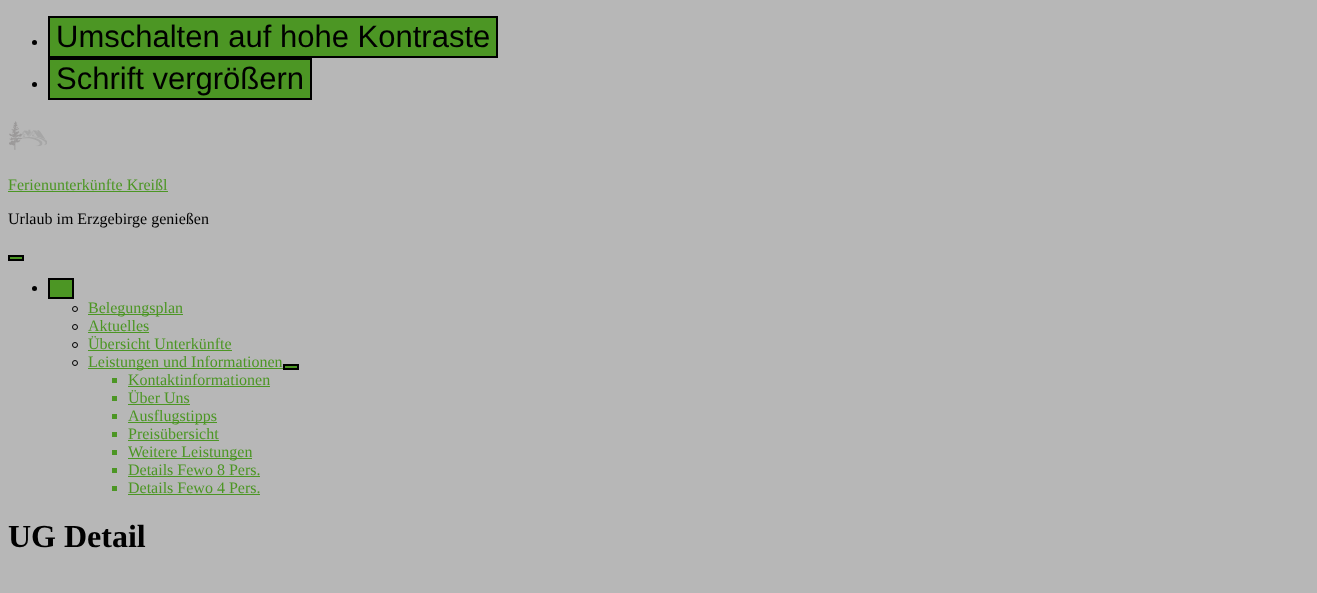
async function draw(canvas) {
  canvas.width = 1317
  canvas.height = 593
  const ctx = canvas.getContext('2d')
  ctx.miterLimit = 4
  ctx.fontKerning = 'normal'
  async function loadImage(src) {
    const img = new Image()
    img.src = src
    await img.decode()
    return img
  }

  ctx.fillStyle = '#b7b7b7'
  ctx.fillRect(0, 0, 1317, 593)
  ctx.fillStyle = '#000'
  ctx.beginPath()
  ctx.arc(34.5, 42.5, 2.5, 0, 2 * Math.PI)
  ctx.fill()
  ctx.fillStyle = '#4c9624'
  ctx.beginPath()
  ctx.rect(49, 17, 448, 40)
  ctx.fill()
  ctx.strokeStyle = '#000'
  ctx.lineWidth = 2
  ctx.stroke()
  ctx.font = '31px Liberation Sans'
  ctx.fillStyle = '#000'
  ctx.fillText('Umschalten auf hohe Kontraste', 56, 47)
  ctx.beginPath()
  ctx.arc(34.5, 84.5, 2.5, 0, 2 * Math.PI)
  ctx.fill()
  ctx.fillStyle = '#4c9624'
  ctx.beginPath()
  ctx.rect(49, 59, 262, 40)
  ctx.fill()
  ctx.stroke()
  ctx.fillStyle = '#000'
  ctx.fillText('Schrift vergrößern', 56, 89)
  ctx.drawImage(await loadImage('image0.png'), 9, 121, 38, 29)
  ctx.font = '16px Liberation Serif'
  ctx.fillStyle = '#4c9624'
  ctx.fillText('Ferienunterkünfte Kreißl', 8, 190)
  ctx.fillRect(8, 191, 160, 1)
  ctx.fillStyle = '#000'
  ctx.fillText('Urlaub im Erzgebirge genießen', 8, 224)
  ctx.fillStyle = '#4c9624'
  ctx.beginPath()
  ctx.rect(9, 256, 14, 4)
  ctx.fill()
  ctx.stroke()
  ctx.fillStyle = '#000'
  ctx.beginPath()
  ctx.arc(34.5, 288.5, 2.5, 0, 2 * Math.PI)
  ctx.fill()
  ctx.fillStyle = '#4c9624'
  ctx.beginPath()
  ctx.rect(49, 279, 24, 19)
  ctx.fill()
  ctx.stroke()
  ctx.beginPath()
  ctx.arc(75, 309, 2.5, 0, 2 * Math.PI)
  ctx.lineWidth = 1
  ctx.stroke()
  ctx.fillRect(88, 314, 95, 1)
  ctx.fillText('Belegungsplan', 88, 313)
  ctx.beginPath()
  ctx.arc(75, 327, 2.5, 0, 2 * Math.PI)
  ctx.stroke()
  ctx.fillText('Aktuelles', 88, 331)
  ctx.fillRect(88, 332, 61, 1)
  ctx.beginPath()
  ctx.arc(75, 345, 2.5, 0, 2 * Math.PI)
  ctx.stroke()
  ctx.fillText('Übersicht Unterkünfte', 88, 349)
  ctx.fillRect(88, 350, 144, 1)
  ctx.beginPath()
  ctx.arc(75, 363, 2.5, 0, 2 * Math.PI)
  ctx.stroke()
  ctx.fillRect(88, 368, 195, 1)
  ctx.fillText('Leistungen und Informationen', 88, 367)
  ctx.beginPath()
  ctx.rect(284, 365, 14, 4)
  ctx.fill()
  ctx.lineWidth = 2
  ctx.stroke()
  ctx.fillRect(112, 378, 5, 5)
  ctx.fillText('Kontaktinformationen', 128, 385)
  ctx.fillRect(128, 386, 142, 1)
  ctx.fillRect(112, 396, 5, 5)
  ctx.fillText('Über Uns', 128, 403)
  ctx.fillRect(128, 404, 62, 1)
  ctx.fillRect(112, 414, 5, 5)
  ctx.fillRect(128, 422, 89, 1)
  ctx.fillText('Ausflugstipps', 128, 421)
  ctx.fillRect(112, 432, 5, 5)
  ctx.fillText('Preisübersicht', 128, 439)
  ctx.fillRect(128, 440, 91, 1)
  ctx.fillRect(112, 450, 5, 5)
  ctx.fillRect(128, 458, 124, 1)
  ctx.fillText('Weitere Leistungen', 128, 457)
  ctx.fillRect(112, 468, 5, 5)
  ctx.fillText('Details Fewo 8 Pers.', 128, 475)
  ctx.fillRect(128, 476, 132, 1)
  ctx.fillRect(112, 486, 5, 5)
  ctx.fillText('Details Fewo 4 Pers.', 128, 493)
  ctx.fillRect(128, 494, 132, 1)
  ctx.font = 'bold 32px Liberation Serif'
  ctx.fillStyle = '#000'
  ctx.fillText('UG Detail', 8, 547)
}

draw(document.querySelector('canvas'))
